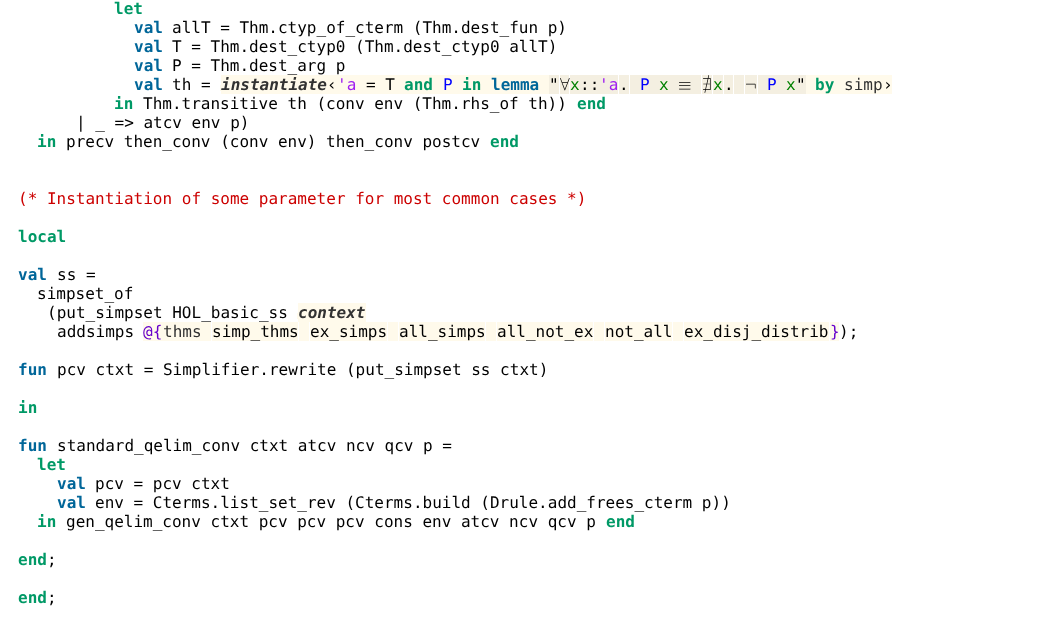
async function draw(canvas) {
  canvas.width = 1045
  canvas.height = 633
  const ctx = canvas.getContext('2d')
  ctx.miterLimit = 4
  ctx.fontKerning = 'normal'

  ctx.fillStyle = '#fff'
  ctx.fillRect(0, 0, 1045, 633)
  ctx.font = 'bold 16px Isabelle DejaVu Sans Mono'
  ctx.fillStyle = '#096'
  ctx.fillText('let', 114, 14)
  ctx.fillStyle = '#069'
  ctx.fillText('val', 134, 33)
  ctx.font = '16px Isabelle DejaVu Sans Mono'
  ctx.fillStyle = '#000'
  ctx.fillText('allT = Thm.ctyp_of_cterm (Thm.dest_fun p)', 172, 33)
  ctx.font = 'bold 16px Isabelle DejaVu Sans Mono'
  ctx.fillStyle = '#069'
  ctx.fillText('val', 134, 52)
  ctx.font = '16px Isabelle DejaVu Sans Mono'
  ctx.fillStyle = '#000'
  ctx.fillText('T = Thm.dest_ctyp0 (Thm.dest_ctyp0 allT)', 172, 52)
  ctx.font = 'bold 16px Isabelle DejaVu Sans Mono'
  ctx.fillStyle = '#069'
  ctx.fillText('val', 134, 71)
  ctx.font = '16px Isabelle DejaVu Sans Mono'
  ctx.fillStyle = '#000'
  ctx.fillText('P = Thm.dest_arg p', 172, 71)
  ctx.font = 'bold 16px Isabelle DejaVu Sans Mono'
  ctx.fillStyle = '#069'
  ctx.fillText('val', 134, 90)
  ctx.font = '16px Isabelle DejaVu Sans Mono'
  ctx.fillStyle = '#000'
  ctx.fillText('th =', 172, 90)
  ctx.fillStyle = '#fffaeb'
  ctx.fillRect(221, 75, 328, 19)
  ctx.font = 'italic bold 16px Isabelle DejaVu Sans Mono'
  ctx.fillStyle = '#323232'
  ctx.fillText('instantiate', 221, 90)
  ctx.fillStyle = '#fffaeb'
  ctx.fillRect(220, 85, 1, 6)
  ctx.font = '16px Isabelle DejaVu Sans Mono'
  ctx.fillStyle = '#a020f0'
  ctx.fillText('\'a', 337, 90)
  ctx.fillStyle = '#000'
  ctx.fillText('= T', 366, 90)
  ctx.font = 'bold 16px Isabelle DejaVu Sans Mono'
  ctx.fillStyle = '#096'
  ctx.fillText('and', 404, 90)
  ctx.font = '16px Isabelle DejaVu Sans Mono'
  ctx.fillStyle = '#00f'
  ctx.fillText('P', 443, 90)
  ctx.font = 'bold 16px Isabelle DejaVu Sans Mono'
  ctx.fillStyle = '#096'
  ctx.fillText('in', 462, 90)
  ctx.fillStyle = '#069'
  ctx.fillText('lemma', 491, 90)
  ctx.fillStyle = '#f4efe1'
  ctx.fillRect(549, 75, 10, 19)
  ctx.font = '16px Isabelle DejaVu Sans Mono'
  ctx.fillStyle = '#000'
  ctx.fillText('"', 549, 90)
  ctx.fillStyle = '#f4efe1'
  ctx.fillRect(560, 75, 9, 19)
  ctx.fillStyle = '#000'
  ctx.fillText('∀', 560, 90)
  ctx.fillStyle = '#f4efe1'
  ctx.fillRect(570, 75, 48, 19)
  ctx.fillStyle = '#a020f0'
  ctx.fillText('\'a', 599, 90)
  ctx.fillStyle = '#f4efe1'
  ctx.fillRect(619, 75, 10, 19)
  ctx.fillRect(630, 75, 71, 19)
  ctx.fillStyle = '#00f'
  ctx.fillText('P', 640, 90)
  ctx.fillStyle = '#f4efe1'
  ctx.fillRect(702, 75, 10, 19)
  ctx.fillStyle = '#000'
  ctx.fillText('∄', 702, 90)
  ctx.fillStyle = '#f4efe1'
  ctx.fillRect(713, 75, 10, 19)
  ctx.fillRect(758, 75, 48, 19)
  ctx.fillStyle = '#00f'
  ctx.fillText('P', 767, 90)
  ctx.fillStyle = '#000'
  ctx.fillText('"', 796, 90)
  ctx.fillStyle = '#fffaeb'
  ctx.fillRect(806, 75, 86, 19)
  ctx.font = 'bold 16px Isabelle DejaVu Sans Mono'
  ctx.fillStyle = '#096'
  ctx.fillText('by', 815, 90)
  ctx.font = '16px Isabelle DejaVu Sans Mono'
  ctx.fillStyle = '#323232'
  ctx.fillText('simp', 844, 90)
  ctx.fillStyle = '#000'
  ctx.fillText('‹', 327, 90)
  ctx.fillStyle = '#008000'
  ctx.fillText('x', 570, 90)
  ctx.fillStyle = '#000'
  ctx.fillText('::', 580, 90)
  ctx.fillText('.', 619, 90)
  ctx.fillStyle = '#008000'
  ctx.fillText('x', 659, 90)
  ctx.fillStyle = '#000'
  ctx.fillText('≡', 678, 90)
  ctx.fillStyle = '#008000'
  ctx.fillText('x', 713, 90)
  ctx.fillStyle = '#f4efe1'
  ctx.fillRect(724, 75, 9, 19)
  ctx.fillStyle = '#000'
  ctx.fillText('.', 724, 90)
  ctx.fillStyle = '#f4efe1'
  ctx.fillRect(745, 75, 12, 19)
  ctx.fillStyle = '#000'
  ctx.fillText('¬', 745, 90)
  ctx.fillStyle = '#f4efe1'
  ctx.fillRect(734, 75, 10, 19)
  ctx.fillStyle = '#008000'
  ctx.fillText('x', 786, 90)
  ctx.fillStyle = '#000'
  ctx.fillText('›', 883, 90)
  ctx.font = 'bold 16px Isabelle DejaVu Sans Mono'
  ctx.fillStyle = '#096'
  ctx.fillText('in', 114, 109)
  ctx.font = '16px Isabelle DejaVu Sans Mono'
  ctx.fillStyle = '#000'
  ctx.fillText('Thm.transitive th (conv env (Thm.rhs_of th))', 143, 109)
  ctx.font = 'bold 16px Isabelle DejaVu Sans Mono'
  ctx.fillStyle = '#096'
  ctx.fillText('end', 577, 109)
  ctx.font = '16px Isabelle DejaVu Sans Mono'
  ctx.fillStyle = '#000'
  ctx.fillText('| _ => atcv env p)', 76, 128)
  ctx.font = 'bold 16px Isabelle DejaVu Sans Mono'
  ctx.fillStyle = '#096'
  ctx.fillText('in', 37, 147)
  ctx.font = '16px Isabelle DejaVu Sans Mono'
  ctx.fillStyle = '#000'
  ctx.fillText('precv then_conv (conv env) then_conv postcv', 66, 147)
  ctx.font = 'bold 16px Isabelle DejaVu Sans Mono'
  ctx.fillStyle = '#096'
  ctx.fillText('end', 490, 147)
  ctx.font = '16px Isabelle DejaVu Sans Mono'
  ctx.fillStyle = '#c00'
  ctx.fillText('(* Instantiation of some parameter for most common cases *)', 18, 204)
  ctx.font = 'bold 16px Isabelle DejaVu Sans Mono'
  ctx.fillStyle = '#096'
  ctx.fillText('local', 18, 242)
  ctx.fillStyle = '#069'
  ctx.fillText('val', 18, 280)
  ctx.font = '16px Isabelle DejaVu Sans Mono'
  ctx.fillStyle = '#000'
  ctx.fillText('ss =', 57, 280)
  ctx.fillText('simpset_of', 37, 299)
  ctx.fillText('(put_simpset HOL_basic_ss', 47, 318)
  ctx.fillStyle = '#fffaeb'
  ctx.fillRect(298, 303, 68, 19)
  ctx.font = 'italic bold 16px Isabelle DejaVu Sans Mono'
  ctx.fillStyle = '#323232'
  ctx.fillText('context', 298, 318)
  ctx.fillStyle = '#fffaeb'
  ctx.fillRect(297, 313, 1, 6)
  ctx.font = '16px Isabelle DejaVu Sans Mono'
  ctx.fillStyle = '#000'
  ctx.fillText('addsimps', 57, 337)
  ctx.fillStyle = '#fffaeb'
  ctx.fillRect(143, 322, 68, 19)
  ctx.fillStyle = '#60c'
  ctx.fillText('@{', 143, 337)
  ctx.fillStyle = '#323232'
  ctx.fillText('thms', 163, 337)
  ctx.fillStyle = '#fffaeb'
  ctx.fillRect(212, 322, 86, 19)
  ctx.fillStyle = '#000'
  ctx.fillText('simp_thms', 212, 337)
  ctx.fillStyle = '#fffaeb'
  ctx.fillRect(310, 322, 77, 19)
  ctx.fillStyle = '#000'
  ctx.fillText('ex_simps', 310, 337)
  ctx.fillStyle = '#fffaeb'
  ctx.fillRect(299, 322, 10, 19)
  ctx.fillRect(399, 322, 86, 19)
  ctx.fillStyle = '#000'
  ctx.fillText('all_simps', 399, 337)
  ctx.fillStyle = '#fffaeb'
  ctx.fillRect(388, 322, 10, 19)
  ctx.fillRect(486, 322, 10, 19)
  ctx.fillRect(497, 322, 96, 19)
  ctx.fillStyle = '#000'
  ctx.fillText('all_not_ex', 497, 337)
  ctx.fillStyle = '#fffaeb'
  ctx.fillRect(594, 322, 10, 19)
  ctx.fillRect(605, 322, 67, 19)
  ctx.fillStyle = '#000'
  ctx.fillText('not_all', 605, 337)
  ctx.fillStyle = '#fffaeb'
  ctx.fillRect(673, 322, 10, 19)
  ctx.fillRect(684, 322, 145, 19)
  ctx.fillStyle = '#000'
  ctx.fillText('ex_disj_distrib', 684, 337)
  ctx.fillStyle = '#fffaeb'
  ctx.fillRect(830, 322, 9, 19)
  ctx.fillStyle = '#60c'
  ctx.fillText('}', 830, 337)
  ctx.fillStyle = '#000'
  ctx.fillText(');', 839, 337)
  ctx.font = 'bold 16px Isabelle DejaVu Sans Mono'
  ctx.fillStyle = '#069'
  ctx.fillText('fun', 18, 375)
  ctx.font = '16px Isabelle DejaVu Sans Mono'
  ctx.fillStyle = '#000'
  ctx.fillText('pcv ctxt = Simplifier.rewrite (put_simpset ss ctxt)', 57, 375)
  ctx.font = 'bold 16px Isabelle DejaVu Sans Mono'
  ctx.fillStyle = '#096'
  ctx.fillText('in', 18, 413)
  ctx.fillStyle = '#069'
  ctx.fillText('fun', 18, 451)
  ctx.font = '16px Isabelle DejaVu Sans Mono'
  ctx.fillStyle = '#000'
  ctx.fillText('standard_qelim_conv ctxt atcv ncv qcv p =', 57, 451)
  ctx.font = 'bold 16px Isabelle DejaVu Sans Mono'
  ctx.fillStyle = '#096'
  ctx.fillText('let', 37, 470)
  ctx.fillStyle = '#069'
  ctx.fillText('val', 57, 489)
  ctx.font = '16px Isabelle DejaVu Sans Mono'
  ctx.fillStyle = '#000'
  ctx.fillText('pcv = pcv ctxt', 95, 489)
  ctx.font = 'bold 16px Isabelle DejaVu Sans Mono'
  ctx.fillStyle = '#069'
  ctx.fillText('val', 57, 508)
  ctx.font = '16px Isabelle DejaVu Sans Mono'
  ctx.fillStyle = '#000'
  ctx.fillText('env = Cterms.list_set_rev (Cterms.build (Drule.add_frees_cterm p))', 95, 508)
  ctx.font = 'bold 16px Isabelle DejaVu Sans Mono'
  ctx.fillStyle = '#096'
  ctx.fillText('in', 37, 527)
  ctx.font = '16px Isabelle DejaVu Sans Mono'
  ctx.fillStyle = '#000'
  ctx.fillText('gen_qelim_conv ctxt pcv pcv pcv cons env atcv ncv qcv p', 66, 527)
  ctx.font = 'bold 16px Isabelle DejaVu Sans Mono'
  ctx.fillStyle = '#096'
  ctx.fillText('end', 606, 527)
  ctx.fillText('end', 18, 565)
  ctx.font = '16px Isabelle DejaVu Sans Mono'
  ctx.fillStyle = '#000'
  ctx.fillText(';', 47, 565)
  ctx.font = 'bold 16px Isabelle DejaVu Sans Mono'
  ctx.fillStyle = '#096'
  ctx.fillText('end', 18, 603)
  ctx.font = '16px Isabelle DejaVu Sans Mono'
  ctx.fillStyle = '#000'
  ctx.fillText(';', 47, 603)
}

draw(document.querySelector('canvas'))
